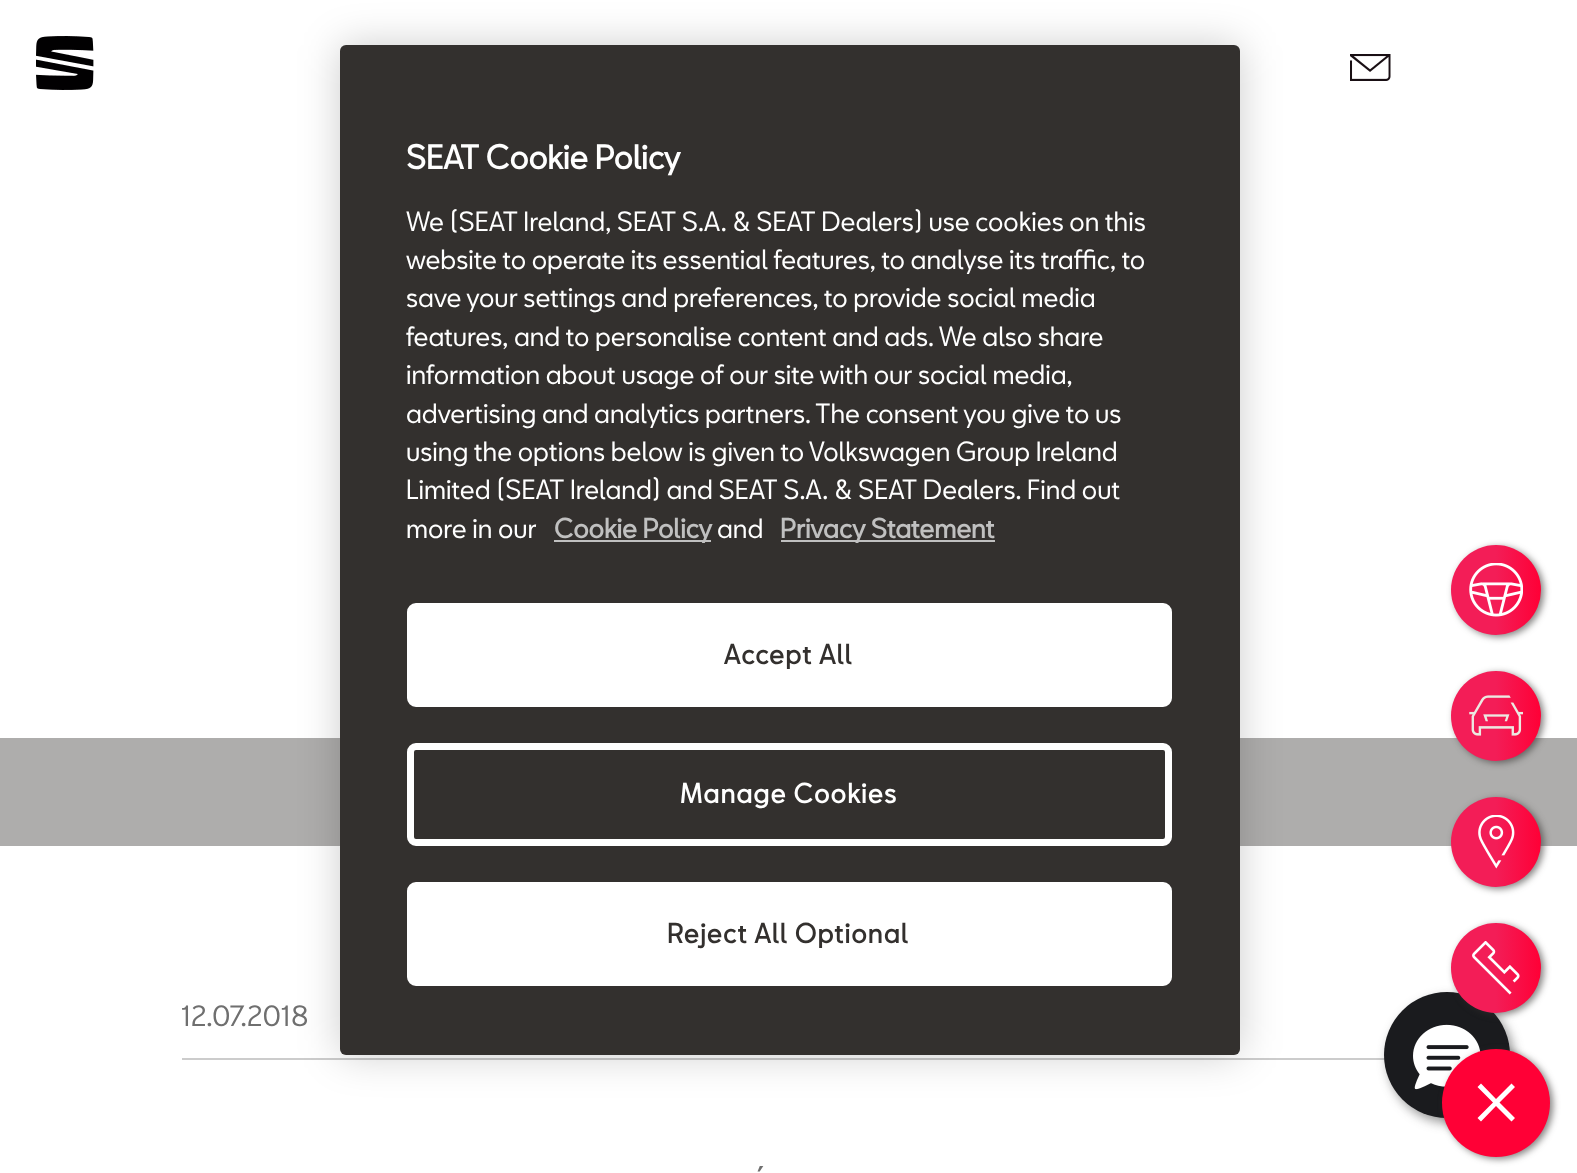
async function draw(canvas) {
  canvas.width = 1577
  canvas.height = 1173
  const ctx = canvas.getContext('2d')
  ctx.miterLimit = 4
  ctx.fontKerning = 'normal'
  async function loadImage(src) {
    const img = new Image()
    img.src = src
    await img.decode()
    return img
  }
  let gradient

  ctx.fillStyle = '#fff'
  ctx.fillRect(0, 0, 1577, 1173)
  ctx.drawImage(await loadImage('image0.png'), 36, 36, 58, 54)
  ctx.drawImage(await loadImage('image1.png'), 1350, 54, 41, 27)
  ctx.fillStyle = '#aeadac'
  ctx.fillRect(0, 738, 1577, 108)
  ctx.fillStyle = '#ccc'
  ctx.fillRect(182, 1058, 1203, 2)
  ctx.fillStyle = '#00000033'
  ctx.filter = 'blur(20px)'
  ctx.beginPath()
  ctx.roundRect(340, 45, 900, 1010, 6)
  ctx.fill()
  ctx.filter = 'none'
  ctx.fillStyle = '#33302e'
  ctx.beginPath()
  ctx.roundRect(340, 45, 900, 1010, 6)
  ctx.fill()
  ctx.font = 'bold 31.5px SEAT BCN'
  ctx.fillStyle = '#fff'
  ctx.fillText('SEAT Cookie Policy', 406, 169)
  ctx.font = '25.6px SEAT BCN'
  ctx.fillText('We (SEAT Ireland, SEAT S.A. & SEAT Dealers) use cookies on this', 406, 231)
  ctx.fillText('website to operate its essential features, to analyse its traffic, to', 406, 269)
  ctx.fillText('save your settings and preferences, to provide social media', 406, 307)
  ctx.fillText('features, and to personalise content and ads. We also share', 406, 346)
  ctx.fillText('information about usage of our site with our social media,', 406, 384)
  ctx.fillText('advertising and analytics partners. The consent you give to us', 406, 423)
  ctx.fillText('using the options below is given to Volkswagen Group Ireland', 406, 461)
  ctx.fillText('Limited (SEAT Ireland) and SEAT S.A. & SEAT Dealers. Find out', 406, 499)
  ctx.fillText('more in our', 406, 538)
  ctx.fillStyle = '#c0c0c0'
  ctx.fillRect(554, 540, 157, 2)
  ctx.font = 'bold 25.6px SEAT BCN'
  ctx.fillText('Cookie Policy', 554, 538)
  ctx.font = '25.6px SEAT BCN'
  ctx.fillStyle = '#fff'
  ctx.fillText('and', 717, 538)
  ctx.fillStyle = '#c0c0c0'
  ctx.fillRect(781, 540, 214, 2)
  ctx.font = 'bold 25.6px SEAT BCN'
  ctx.fillText('Privacy Statement', 780, 538)
  ctx.fillStyle = '#fff'
  ctx.beginPath()
  ctx.roundRect(410.5, 606.5, 758, 97, 5.5)
  ctx.fill()
  ctx.strokeStyle = '#fff'
  ctx.lineWidth = 7
  ctx.stroke()
  ctx.letterSpacing = '1.25px'
  ctx.fillStyle = '#33302e'
  ctx.fillText('Accept All', 724, 664)
  ctx.beginPath()
  ctx.roundRect(410.5, 746.5, 758, 96, 5.5)
  ctx.stroke()
  ctx.fillStyle = '#fff'
  ctx.fillText('Manage Cookies', 680, 803)
  ctx.beginPath()
  ctx.roundRect(410.5, 885.5, 758, 97, 5.5)
  ctx.fill()
  ctx.stroke()
  ctx.fillStyle = '#33302e'
  ctx.fillText('Reject All Optional', 667, 943)
  ctx.fillStyle = '#33302e99'
  ctx.filter = 'blur(3.5px)'
  ctx.beginPath()
  ctx.roundRect(1454, 547, 90, 90, 45)
  ctx.fill()
  ctx.filter = 'none'
  gradient = ctx.createLinearGradient(1451, 590, 1541, 590)
  gradient.addColorStop(0.5, '#f31d57')
  gradient.addColorStop(1, '#ff0036')
  ctx.fillStyle = gradient
  ctx.beginPath()
  ctx.arc(1496, 590, 45, 0, 2 * Math.PI)
  ctx.fill()
  ctx.drawImage(await loadImage('image2.png'), 1469, 563, 54, 54)
  ctx.fillStyle = '#33302e99'
  ctx.filter = 'blur(3.5px)'
  ctx.beginPath()
  ctx.roundRect(1454, 673, 90, 90, 45)
  ctx.fill()
  ctx.filter = 'none'
  gradient = ctx.createLinearGradient(1451, 716, 1541, 716)
  gradient.addColorStop(0.5, '#f31d57')
  gradient.addColorStop(1, '#ff0036')
  ctx.fillStyle = gradient
  ctx.beginPath()
  ctx.arc(1496, 716, 45, 0, 2 * Math.PI)
  ctx.fill()
  ctx.drawImage(await loadImage('image3.png'), 1469, 695, 54, 41)
  ctx.fillStyle = '#33302e99'
  ctx.filter = 'blur(3.5px)'
  ctx.beginPath()
  ctx.roundRect(1454, 799, 90, 90, 45)
  ctx.fill()
  ctx.filter = 'none'
  gradient = ctx.createLinearGradient(1451, 842, 1541, 842)
  gradient.addColorStop(0.5, '#f31d57')
  gradient.addColorStop(1, '#ff0036')
  ctx.fillStyle = gradient
  ctx.beginPath()
  ctx.arc(1496, 842, 45, 0, 2 * Math.PI)
  ctx.fill()
  ctx.drawImage(await loadImage('image4.png'), 1478, 815, 37, 54)
  ctx.fillStyle = '#2d2d2d80'
  ctx.filter = 'blur(5.5px)'
  ctx.beginPath()
  ctx.roundRect(1388, 997, 126, 126, 63)
  ctx.fill()
  ctx.filter = 'none'
  ctx.fillStyle = '#1a1b1e'
  ctx.beginPath()
  ctx.arc(1447, 1055, 63, 0, 2 * Math.PI)
  ctx.fill()
  ctx.drawImage(await loadImage('image6.png'), 1413, 1024, 68, 66)
  ctx.fillStyle = '#33302e99'
  ctx.filter = 'blur(3.5px)'
  ctx.beginPath()
  ctx.roundRect(1454, 925, 90, 90, 45)
  ctx.fill()
  ctx.filter = 'none'
  gradient = ctx.createLinearGradient(1451, 968, 1541, 968)
  gradient.addColorStop(0.5, '#f31d57')
  gradient.addColorStop(1, '#ff0036')
  ctx.fillStyle = gradient
  ctx.beginPath()
  ctx.arc(1496, 968, 45, 0, 2 * Math.PI)
  ctx.fill()
  ctx.drawImage(await loadImage('image5.png'), 1472, 941, 48, 54)
  ctx.fillStyle = '#33302e99'
  ctx.filter = 'blur(3.5px)'
  ctx.beginPath()
  ctx.roundRect(1445, 1051, 108, 108, 54)
  ctx.fill()
  ctx.filter = 'none'
  ctx.fillStyle = '#ff0036'
  ctx.beginPath()
  ctx.arc(1496, 1103, 54, 0, 2 * Math.PI)
  ctx.fill()
  ctx.fillStyle = '#fff'
  ctx.beginPath()
  ctx.moveTo(1496, 1099)
  ctx.lineTo(1511.5, 1083.5)
  ctx.lineTo(1515, 1087)
  ctx.lineTo(1499.5, 1102.5)
  ctx.lineTo(1515, 1118)
  ctx.lineTo(1511.5, 1121.5)
  ctx.lineTo(1496, 1106)
  ctx.lineTo(1481, 1121.5)
  ctx.lineTo(1477.5, 1118)
  ctx.lineTo(1493, 1102.5)
  ctx.lineTo(1477.5, 1087)
  ctx.lineTo(1481, 1083.5)
  ctx.closePath()
  ctx.fill('evenodd')
  ctx.letterSpacing = '0px'
  ctx.font = '27px SEAT BCN'
  ctx.fillStyle = '#6f6f6f'
  ctx.fillText('12.07.2018', 181, 1026)
  ctx.font = '31.5px SEAT BCN'
  ctx.fillText('´', 756, 1190)
}

draw(document.querySelector('canvas'))
